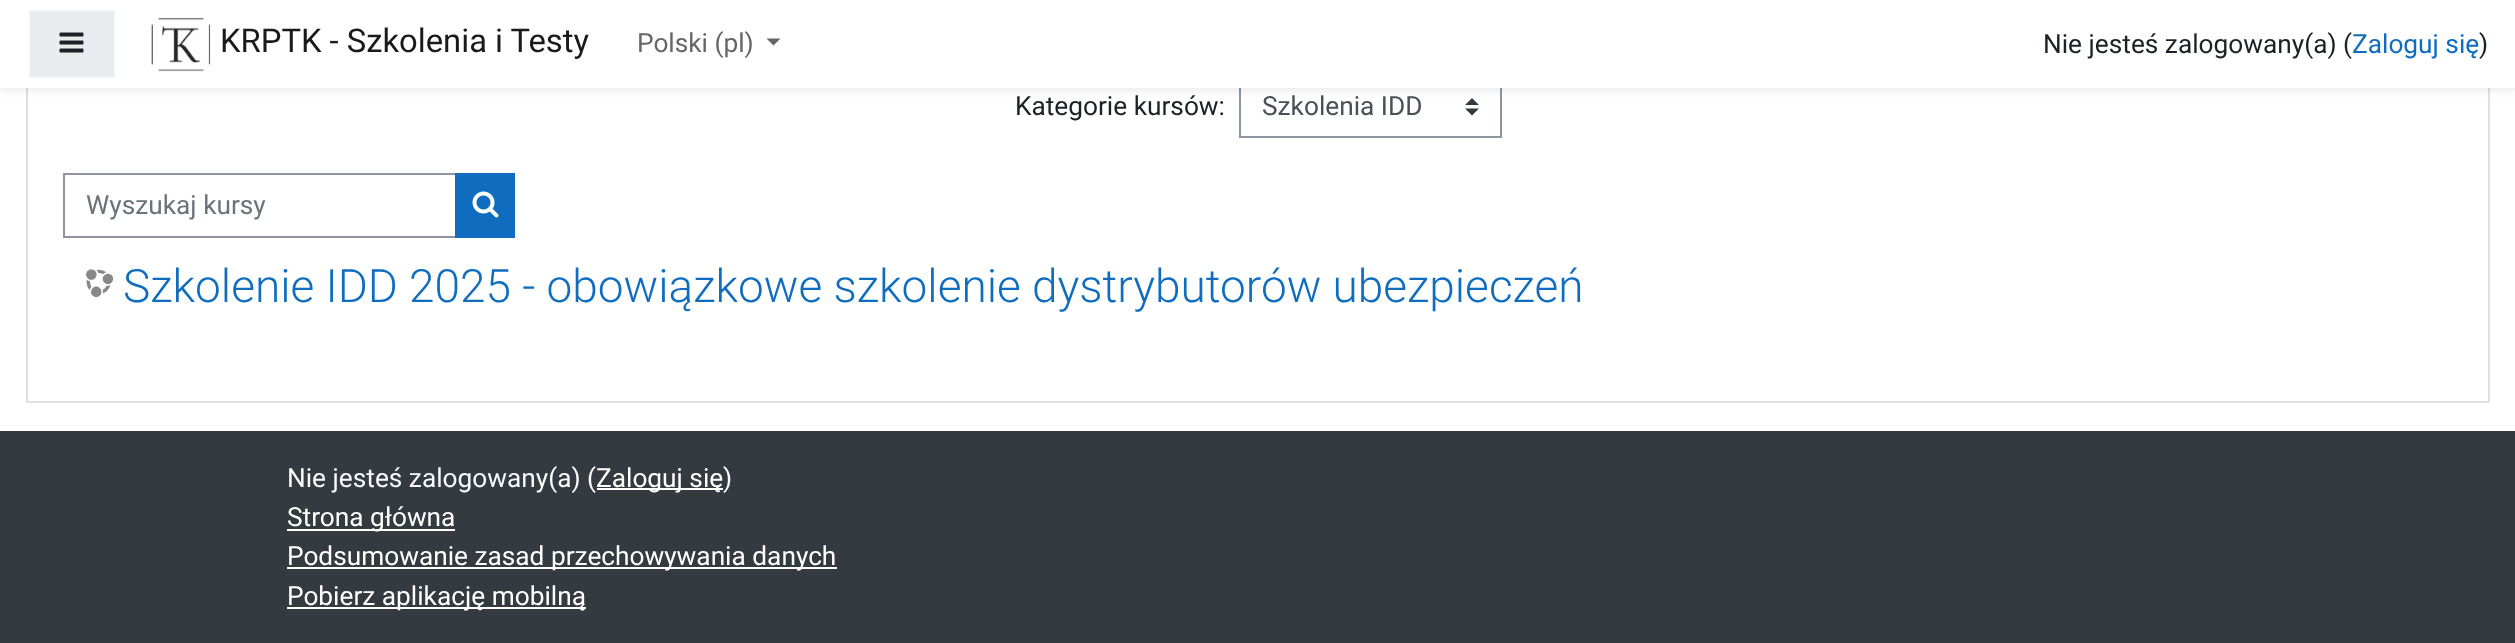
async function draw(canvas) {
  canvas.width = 2515
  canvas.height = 643
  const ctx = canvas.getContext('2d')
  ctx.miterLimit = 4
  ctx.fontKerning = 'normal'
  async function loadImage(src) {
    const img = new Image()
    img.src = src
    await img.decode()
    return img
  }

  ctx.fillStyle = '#fff'
  ctx.fillRect(0, 0, 2515, 643)
  ctx.strokeStyle = '#dfdfdf'
  ctx.lineWidth = 2
  ctx.strokeRect(27, 20, 2462, 382)
  ctx.fillStyle = '#343a40'
  ctx.beginPath()
  ctx.moveTo(1472, 98)
  ctx.lineTo(1465, 105)
  ctx.lineTo(1479, 105)
  ctx.closePath()
  ctx.moveTo(1472, 115.5)
  ctx.lineTo(1465, 108.5)
  ctx.lineTo(1479, 108.5)
  ctx.closePath()
  ctx.fill()
  ctx.strokeStyle = '#8f959e'
  ctx.strokeRect(1240, 76, 261, 61)
  ctx.fillStyle = '#00000014'
  ctx.filter = 'blur(3.5px)'
  ctx.beginPath()
  ctx.rect(0, 4, 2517, 87)
  ctx.fill()
  ctx.filter = 'none'
  ctx.fillStyle = '#fff'
  ctx.fillRect(0, 0, 2515, 88)
  ctx.fillStyle = '#e9ecef'
  ctx.beginPath()
  ctx.rect(29, 10, 86, 68)
  ctx.fill()
  ctx.strokeStyle = '#f8f9fa'
  ctx.stroke()
  ctx.drawImage(await loadImage('image0.png'), 59, 32, 25, 21)
  ctx.drawImage(await loadImage('image1.png'), 151, 18, 60, 54)
  ctx.font = '32.75px Roboto'
  ctx.fillStyle = '#1a1a1a'
  ctx.fillText('KRPTK - Szkolenia i Testy', 220, 52)
  ctx.font = '26.25px Roboto'
  ctx.fillStyle = '#666'
  ctx.fillText('Polski (pl)', 637, 52)
  ctx.beginPath()
  ctx.moveTo(766.5, 38.5)
  ctx.lineTo(780.5, 38.5)
  ctx.lineTo(773.5, 45.5)
  ctx.closePath()
  ctx.fill()
  ctx.fillStyle = '#1d2125'
  ctx.fillText('Nie jesteś zalogowany(a) (', 2043, 53)
  ctx.fillStyle = '#0f6cbf'
  ctx.fillText('Zaloguj się', 2352, 53)
  ctx.fillStyle = '#1d2125'
  ctx.fillText(')', 2479, 53)
  ctx.fillText('Kategorie kursów:', 1015, 115)
  ctx.fillStyle = '#495057'
  ctx.fillText('Szkolenia IDD', 1262, 115)
  ctx.strokeStyle = '#8f959e'
  ctx.strokeRect(64, 174, 392, 63)
  ctx.fillStyle = '#6a737b'
  ctx.fillText('Wyszukaj kursy', 86, 214)
  ctx.fillStyle = '#0f6cbf'
  ctx.fillRect(455, 173, 60, 65)
  ctx.drawImage(await loadImage('image2.png'), 472, 191, 27, 27)
  ctx.drawImage(await loadImage('image3.png'), 86, 269, 28, 28)
  ctx.font = '300 45.95px Roboto'
  ctx.fillText('Szkolenie IDD 2025 - obowiązkowe szkolenie dystrybutorów ubezpieczeń', 123, 302)
  ctx.fillStyle = '#343a40'
  ctx.fillRect(0, 431, 2515, 212)
  ctx.font = '26.25px Roboto'
  ctx.fillStyle = '#f8f9fa'
  ctx.fillText('Nie jesteś zalogowany(a) (', 287, 487)
  ctx.fillStyle = '#fff'
  ctx.fillRect(597, 488, 126, 2)
  ctx.fillText('Zaloguj się', 596, 487)
  ctx.fillStyle = '#f8f9fa'
  ctx.fillText(')', 723, 487)
  ctx.fillStyle = '#fff'
  ctx.fillRect(287, 529, 168, 2)
  ctx.fillText('Strona główna', 287, 526)
  ctx.fillRect(287, 567, 550, 2)
  ctx.fillText('Podsumowanie zasad przechowywania danych', 287, 565)
  ctx.fillRect(287, 607, 299, 2)
  ctx.fillText('Pobierz aplikację mobilną', 287, 605)
}

draw(document.querySelector('canvas'))
